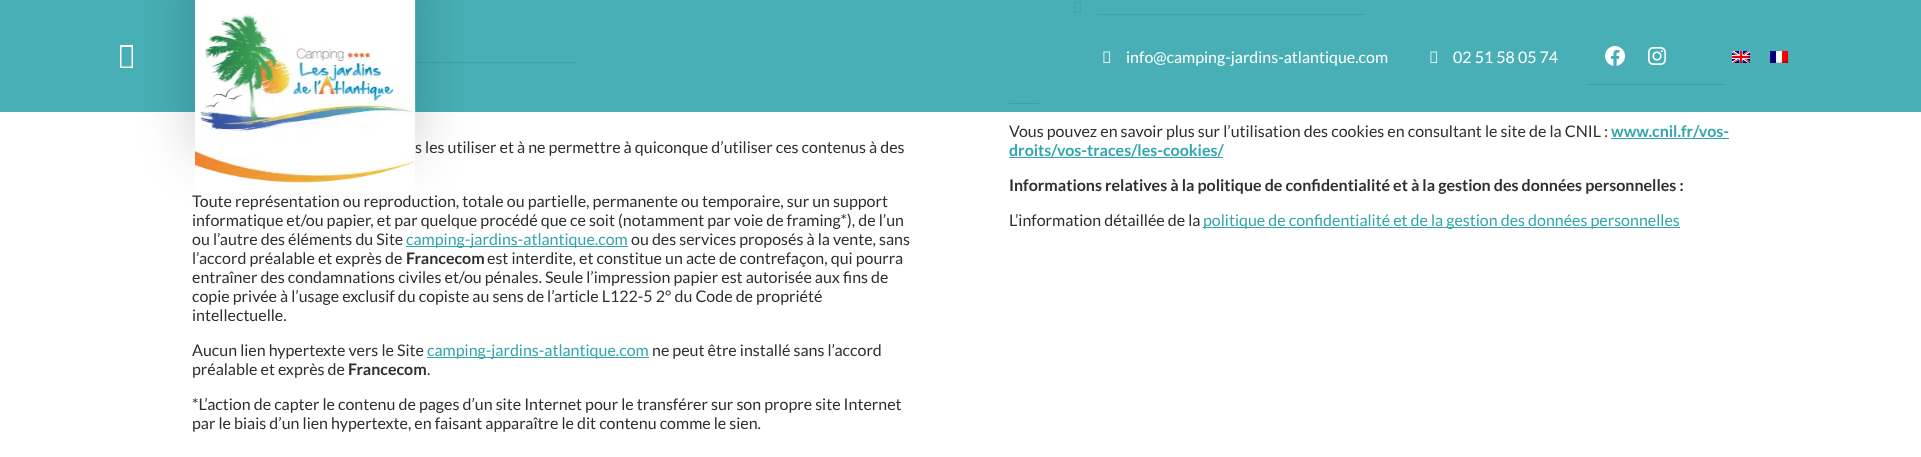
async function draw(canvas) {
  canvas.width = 1921
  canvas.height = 457
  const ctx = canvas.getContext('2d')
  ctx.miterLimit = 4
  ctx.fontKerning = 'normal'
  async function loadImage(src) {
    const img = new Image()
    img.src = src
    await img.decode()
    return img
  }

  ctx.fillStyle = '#fff'
  ctx.fillRect(0, 0, 1921, 457)
  ctx.fillStyle = '#33a6ad'
  ctx.fillRect(414, 62, 163, 1)
  ctx.drawImage(await loadImage('image6.png'), 1074, 1, 8, 12)
  ctx.fillRect(1097, 14, 269, 1)
  ctx.fillRect(1586, 84, 139, 1)
  ctx.fillRect(1009, 103, 30, 1)
  ctx.fillStyle = '#33a6ade6'
  ctx.fillRect(0, 0, 1921, 112)
  ctx.fillStyle = '#fff'
  ctx.beginPath()
  ctx.moveTo(120, 68)
  ctx.lineTo(120, 45)
  ctx.lineTo(133, 45)
  ctx.lineTo(133, 68)
  ctx.closePath()
  ctx.moveTo(121.5, 66.5)
  ctx.lineTo(131.5, 66.5)
  ctx.lineTo(131.5, 47)
  ctx.lineTo(121.5, 47)
  ctx.closePath()
  ctx.fill()
  ctx.save()
  ctx.beginPath()
  ctx.moveTo(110, 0)
  ctx.lineTo(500, 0)
  ctx.lineTo(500, 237)
  ctx.lineTo(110, 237)
  ctx.closePath()
  ctx.moveTo(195, 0)
  ctx.lineTo(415, 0)
  ctx.lineTo(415, 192)
  ctx.lineTo(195, 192)
  ctx.closePath()
  ctx.clip('evenodd')
  ctx.fillStyle = '#00000033'
  ctx.filter = 'blur(28px)'
  ctx.beginPath()
  ctx.rect(195, -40, 220, 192)
  ctx.fill()
  ctx.filter = 'none'
  ctx.restore()
  ctx.font = '16px Lato'
  ctx.fillStyle = '#2f2f2f'
  ctx.fillText('s les utiliser et à ne permettre à quiconque d’utiliser ces contenus à des', 415, 153)
  ctx.drawImage(await loadImage('image0.png'), 195, 0, 221, 183)
  ctx.drawImage(await loadImage('image1.png'), 1103, 51, 8, 12)
  ctx.fillStyle = '#fff'
  ctx.fillText('info@camping-jardins-atlantique.com', 1126, 63)
  ctx.drawImage(await loadImage('image1.png'), 1430, 51, 8, 12)
  ctx.fillText('02 51 58 05 74', 1453, 63)
  ctx.drawImage(await loadImage('image2.png'), 1605, 46, 20, 20)
  ctx.drawImage(await loadImage('image3.png'), 1648, 47, 18, 18)
  ctx.drawImage(await loadImage('image4.png'), 1732, 51, 18, 12)
  ctx.drawImage(await loadImage('image5.png'), 1770, 51, 18, 12)
  ctx.fillStyle = '#2f2f2f'
  ctx.fillText('Toute représentation ou reproduction, totale ou partielle, permanente ou temporaire, sur un support', 192, 207)
  ctx.fillText('informatique et/ou papier, et par quelque procédé que ce soit (notamment par voie de framing*), de l’un', 192, 226)
  ctx.fillText('ou l’autre des éléments du Site', 192, 245)
  ctx.fillStyle = '#33a6ad'
  ctx.fillRect(406, 246, 222, 1)
  ctx.fillText('camping-jardins-atlantique.com', 406, 245)
  ctx.fillStyle = '#2f2f2f'
  ctx.fillText('ou des services proposés à la vente, sans', 631, 245)
  ctx.fillText('l’accord préalable et exprès de', 192, 264)
  ctx.font = 'bold 16px Lato'
  ctx.fillText('Francecom', 406, 264)
  ctx.font = '16px Lato'
  ctx.fillText('est interdite, et constitue un acte de contrefaçon, qui pourra', 487, 264)
  ctx.fillText('entraîner des condamnations civiles et/ou pénales. Seule l’impression papier est autorisée aux fins de', 192, 283)
  ctx.fillText('copie privée à l’usage exclusif du copiste au sens de l’article L122-5 2° du Code de propriété', 192, 302)
  ctx.fillText('intellectuelle.', 192, 321)
  ctx.fillText('Aucun lien hypertexte vers le Site', 192, 356)
  ctx.fillStyle = '#33a6ad'
  ctx.fillRect(427, 357, 222, 1)
  ctx.fillText('camping-jardins-atlantique.com', 427, 356)
  ctx.fillStyle = '#2f2f2f'
  ctx.fillText('ne peut être installé sans l’accord', 652, 356)
  ctx.fillText('préalable et exprès de', 192, 375)
  ctx.font = 'bold 16px Lato'
  ctx.fillText('Francecom', 348, 375)
  ctx.font = '16px Lato'
  ctx.fillText('.', 427, 375)
  ctx.fillText('*L’action de capter le contenu de pages d’un site Internet pour le transférer sur son propre site Internet', 192, 410)
  ctx.fillText('par le biais d’un lien hypertexte, en faisant apparaître le dit contenu comme le sien.', 192, 429)
  ctx.fillText('Vous pouvez en savoir plus sur l’utilisation des cookies en consultant le site de la CNIL :', 1009, 137)
  ctx.font = 'bold 16px Lato'
  ctx.fillStyle = '#33a6ad'
  ctx.fillText('www.cnil.fr/vos-', 1611, 137)
  ctx.fillRect(1611, 138, 118, 1)
  ctx.fillText('droits/vos-traces/les-cookies/', 1009, 156)
  ctx.fillRect(1009, 157, 214, 1)
  ctx.fillStyle = '#2f2f2f'
  ctx.fillText('Informations relatives à la politique de confidentialité et à la gestion des données personnelles :', 1009, 191)
  ctx.font = '16px Lato'
  ctx.fillText('L’information détaillée de la', 1009, 226)
  ctx.fillStyle = '#33a6ad'
  ctx.fillRect(1203, 227, 477, 1)
  ctx.fillText('politique de confidentialité et de la gestion des données personnelles', 1203, 226)
}

draw(document.querySelector('canvas'))
